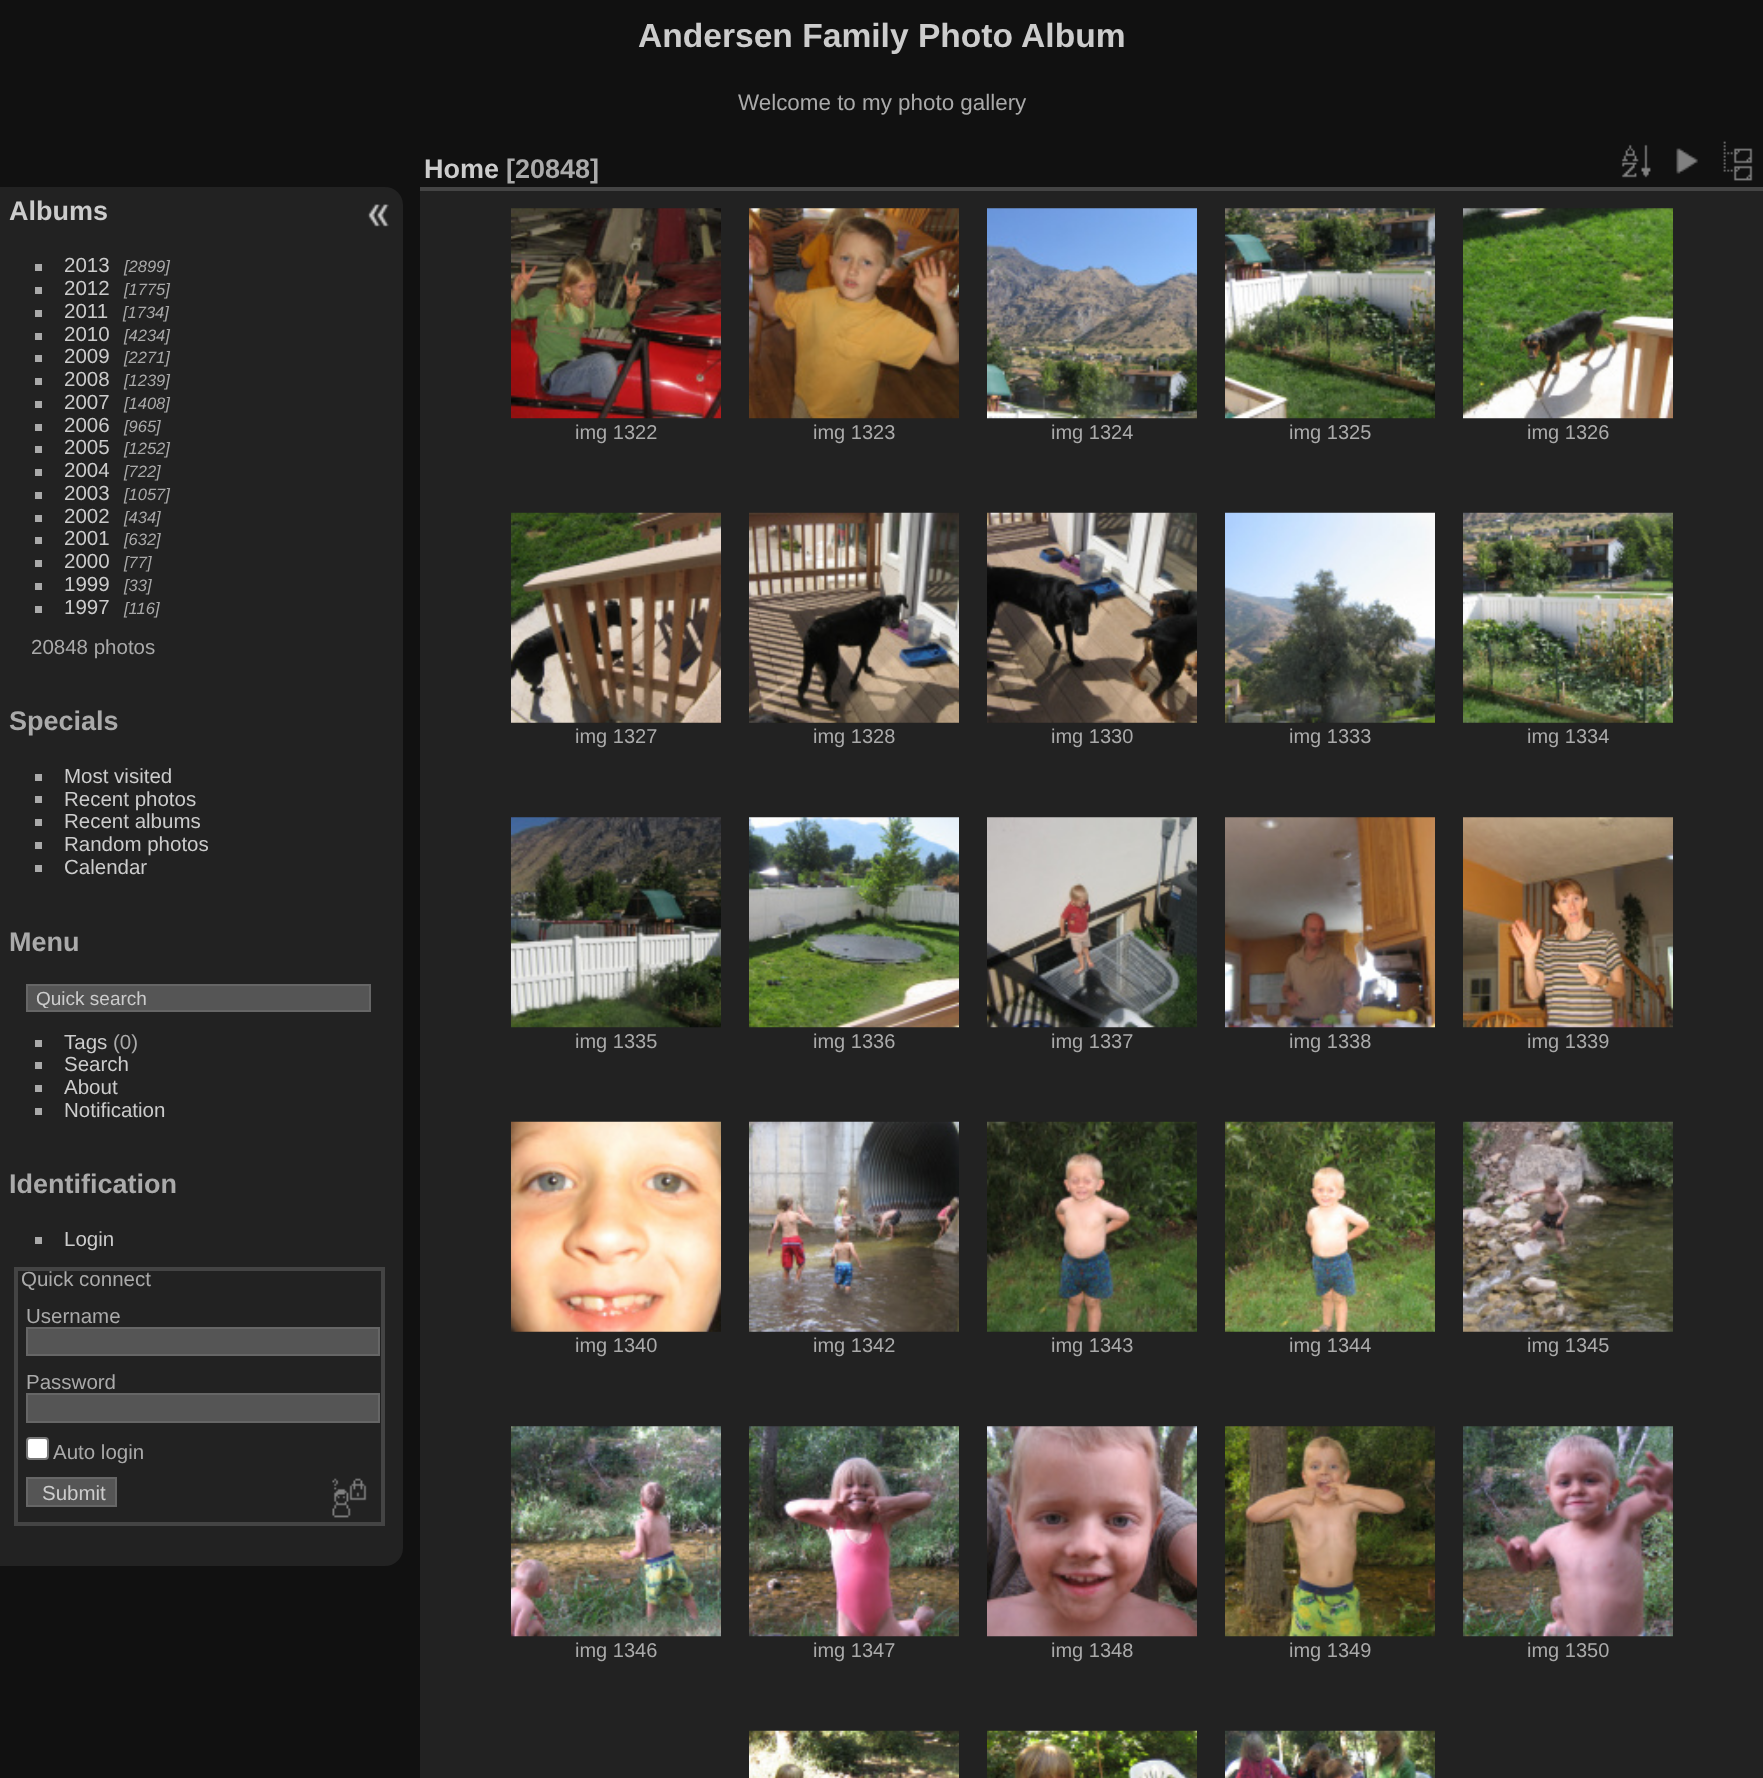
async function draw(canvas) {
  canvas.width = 1763
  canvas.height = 1778
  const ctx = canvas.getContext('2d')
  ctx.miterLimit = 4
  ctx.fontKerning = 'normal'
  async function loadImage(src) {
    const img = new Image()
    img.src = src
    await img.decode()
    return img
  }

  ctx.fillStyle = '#111'
  ctx.fillRect(0, 0, 1763, 1778)
  ctx.font = 'bold 33.6px Liberation Sans'
  ctx.fillStyle = '#ccc'
  ctx.fillText('Andersen Family Photo Album', 638, 47)
  ctx.font = '22.4px Liberation Sans'
  ctx.fillStyle = '#aaa'
  ctx.fillText('Welcome to my photo gallery', 738, 110)
  ctx.fillStyle = '#222'
  ctx.beginPath()
  ctx.roundRect(0, 187, 403, 1379, [0, 18, 18, 0])
  ctx.fill()
  ctx.font = 'bold 27px Liberation Sans'
  ctx.fillStyle = '#ccc'
  ctx.fillText('Albums', 9, 220)
  ctx.fillStyle = '#aaa'
  ctx.fillRect(35, 264, 7, 7)
  ctx.font = '20.5px Liberation Sans'
  ctx.fillStyle = '#ccc'
  ctx.fillText('2013', 64, 272)
  ctx.font = 'italic 16.5px Liberation Sans'
  ctx.fillStyle = '#aaa'
  ctx.fillText('[2899]', 124, 272)
  ctx.fillRect(35, 287, 7, 7)
  ctx.font = '20.5px Liberation Sans'
  ctx.fillStyle = '#ccc'
  ctx.fillText('2012', 64, 295)
  ctx.font = 'italic 16.5px Liberation Sans'
  ctx.fillStyle = '#aaa'
  ctx.fillText('[1775]', 124, 295)
  ctx.fillRect(35, 310, 7, 7)
  ctx.font = '20.5px Liberation Sans'
  ctx.fillStyle = '#ccc'
  ctx.fillText('2011', 64, 318)
  ctx.font = 'italic 16.5px Liberation Sans'
  ctx.fillStyle = '#aaa'
  ctx.fillText('[1734]', 123, 318)
  ctx.fillRect(35, 333, 7, 7)
  ctx.font = '20.5px Liberation Sans'
  ctx.fillStyle = '#ccc'
  ctx.fillText('2010', 64, 341)
  ctx.font = 'italic 16.5px Liberation Sans'
  ctx.fillStyle = '#aaa'
  ctx.fillText('[4234]', 124, 341)
  ctx.fillRect(35, 355, 7, 7)
  ctx.font = '20.5px Liberation Sans'
  ctx.fillStyle = '#ccc'
  ctx.fillText('2009', 64, 363)
  ctx.font = 'italic 16.5px Liberation Sans'
  ctx.fillStyle = '#aaa'
  ctx.fillText('[2271]', 124, 363)
  ctx.fillRect(35, 378, 7, 7)
  ctx.font = '20.5px Liberation Sans'
  ctx.fillStyle = '#ccc'
  ctx.fillText('2008', 64, 386)
  ctx.font = 'italic 16.5px Liberation Sans'
  ctx.fillStyle = '#aaa'
  ctx.fillText('[1239]', 124, 386)
  ctx.fillRect(35, 401, 7, 7)
  ctx.font = '20.5px Liberation Sans'
  ctx.fillStyle = '#ccc'
  ctx.fillText('2007', 64, 409)
  ctx.font = 'italic 16.5px Liberation Sans'
  ctx.fillStyle = '#aaa'
  ctx.fillText('[1408]', 124, 409)
  ctx.fillRect(35, 424, 7, 7)
  ctx.font = '20.5px Liberation Sans'
  ctx.fillStyle = '#ccc'
  ctx.fillText('2006', 64, 432)
  ctx.font = 'italic 16.5px Liberation Sans'
  ctx.fillStyle = '#aaa'
  ctx.fillText('[965]', 124, 432)
  ctx.fillRect(35, 446, 7, 7)
  ctx.font = '20.5px Liberation Sans'
  ctx.fillStyle = '#ccc'
  ctx.fillText('2005', 64, 454)
  ctx.font = 'italic 16.5px Liberation Sans'
  ctx.fillStyle = '#aaa'
  ctx.fillText('[1252]', 124, 454)
  ctx.fillRect(35, 469, 7, 7)
  ctx.font = '20.5px Liberation Sans'
  ctx.fillStyle = '#ccc'
  ctx.fillText('2004', 64, 477)
  ctx.font = 'italic 16.5px Liberation Sans'
  ctx.fillStyle = '#aaa'
  ctx.fillText('[722]', 124, 477)
  ctx.fillRect(35, 492, 7, 7)
  ctx.font = '20.5px Liberation Sans'
  ctx.fillStyle = '#ccc'
  ctx.fillText('2003', 64, 500)
  ctx.font = 'italic 16.5px Liberation Sans'
  ctx.fillStyle = '#aaa'
  ctx.fillText('[1057]', 124, 500)
  ctx.fillRect(35, 515, 7, 7)
  ctx.font = '20.5px Liberation Sans'
  ctx.fillStyle = '#ccc'
  ctx.fillText('2002', 64, 523)
  ctx.font = 'italic 16.5px Liberation Sans'
  ctx.fillStyle = '#aaa'
  ctx.fillText('[434]', 124, 523)
  ctx.fillRect(35, 537, 7, 7)
  ctx.font = '20.5px Liberation Sans'
  ctx.fillStyle = '#ccc'
  ctx.fillText('2001', 64, 545)
  ctx.font = 'italic 16.5px Liberation Sans'
  ctx.fillStyle = '#aaa'
  ctx.fillText('[632]', 124, 545)
  ctx.fillRect(35, 560, 7, 7)
  ctx.font = '20.5px Liberation Sans'
  ctx.fillStyle = '#ccc'
  ctx.fillText('2000', 64, 568)
  ctx.font = 'italic 16.5px Liberation Sans'
  ctx.fillStyle = '#aaa'
  ctx.fillText('[77]', 124, 568)
  ctx.fillRect(35, 583, 7, 7)
  ctx.font = '20.5px Liberation Sans'
  ctx.fillStyle = '#ccc'
  ctx.fillText('1999', 64, 591)
  ctx.font = 'italic 16.5px Liberation Sans'
  ctx.fillStyle = '#aaa'
  ctx.fillText('[33]', 124, 591)
  ctx.fillRect(35, 606, 7, 7)
  ctx.font = '20.5px Liberation Sans'
  ctx.fillStyle = '#ccc'
  ctx.fillText('1997', 64, 614)
  ctx.font = 'italic 16.5px Liberation Sans'
  ctx.fillStyle = '#aaa'
  ctx.fillText('[116]', 124, 614)
  ctx.font = '20.5px Liberation Sans'
  ctx.fillText('20848 photos', 31, 654)
  ctx.font = 'bold 27px Liberation Sans'
  ctx.fillText('Specials', 9, 730)
  ctx.fillRect(35, 774, 7, 7)
  ctx.font = '20.5px Liberation Sans'
  ctx.fillStyle = '#ccc'
  ctx.fillText('Most visited', 64, 783)
  ctx.fillStyle = '#aaa'
  ctx.fillRect(35, 796, 7, 7)
  ctx.fillStyle = '#ccc'
  ctx.fillText('Recent photos', 64, 806)
  ctx.fillStyle = '#aaa'
  ctx.fillRect(35, 819, 7, 7)
  ctx.fillStyle = '#ccc'
  ctx.fillText('Recent albums', 64, 828)
  ctx.fillStyle = '#aaa'
  ctx.fillRect(35, 842, 7, 7)
  ctx.fillStyle = '#ccc'
  ctx.fillText('Random photos', 64, 851)
  ctx.fillStyle = '#aaa'
  ctx.fillRect(35, 865, 7, 7)
  ctx.fillStyle = '#ccc'
  ctx.fillText('Calendar', 64, 874)
  ctx.font = 'bold 27px Liberation Sans'
  ctx.fillStyle = '#aaa'
  ctx.fillText('Menu', 9, 951)
  ctx.fillStyle = '#555'
  ctx.beginPath()
  ctx.rect(27, 985, 343, 26)
  ctx.fill()
  ctx.strokeStyle = '#666'
  ctx.lineWidth = 2
  ctx.stroke()
  ctx.save()
  ctx.beginPath()
  ctx.rect(32, 987, 334, 21)
  ctx.clip()
  ctx.font = '19px Liberation Sans'
  ctx.fillStyle = '#ccc'
  ctx.fillText('Quick search', 36, 1005)
  ctx.restore()
  ctx.fillStyle = '#aaa'
  ctx.fillRect(35, 1040, 7, 7)
  ctx.font = '20.5px Liberation Sans'
  ctx.fillStyle = '#ccc'
  ctx.fillText('Tags', 64, 1049)
  ctx.fillStyle = '#aaa'
  ctx.fillText('(0)', 113, 1049)
  ctx.fillRect(35, 1062, 7, 7)
  ctx.fillStyle = '#ccc'
  ctx.fillText('Search', 64, 1071)
  ctx.fillStyle = '#aaa'
  ctx.fillRect(35, 1085, 7, 7)
  ctx.fillStyle = '#ccc'
  ctx.fillText('About', 64, 1094)
  ctx.fillStyle = '#aaa'
  ctx.fillRect(35, 1108, 7, 7)
  ctx.fillStyle = '#ccc'
  ctx.fillText('Notification', 64, 1117)
  ctx.font = 'bold 27px Liberation Sans'
  ctx.fillStyle = '#aaa'
  ctx.fillText('Identification', 9, 1193)
  ctx.fillRect(35, 1237, 7, 7)
  ctx.font = '20.5px Liberation Sans'
  ctx.fillStyle = '#ccc'
  ctx.fillText('Login', 64, 1246)
  ctx.strokeStyle = '#444'
  ctx.lineWidth = 4
  ctx.strokeRect(16, 1269, 367, 255)
  ctx.fillStyle = '#aaa'
  ctx.fillText('Quick connect', 21, 1286)
  ctx.fillText('Username', 26, 1323)
  ctx.fillStyle = '#555'
  ctx.beginPath()
  ctx.rect(27, 1328, 352, 27)
  ctx.fill()
  ctx.strokeStyle = '#666'
  ctx.lineWidth = 2
  ctx.stroke()
  ctx.fillStyle = '#aaa'
  ctx.fillText('Password', 26, 1389)
  ctx.fillStyle = '#555'
  ctx.beginPath()
  ctx.rect(27, 1394, 352, 28)
  ctx.fill()
  ctx.stroke()
  ctx.fillStyle = '#fff'
  ctx.beginPath()
  ctx.roundRect(27, 1438, 21, 21, 3)
  ctx.fill()
  ctx.strokeStyle = '#767676'
  ctx.stroke()
  ctx.fillStyle = '#aaa'
  ctx.fillText('Auto login', 53, 1459)
  ctx.fillStyle = '#555'
  ctx.beginPath()
  ctx.rect(27, 1478, 89, 28)
  ctx.fill()
  ctx.strokeStyle = '#666'
  ctx.stroke()
  ctx.fillStyle = '#ccc'
  ctx.fillText('Submit', 42, 1500)
  ctx.drawImage(await loadImage('image0.png'), 332, 1478, 35, 40)
  ctx.drawImage(await loadImage('image1.png'), 367, 204, 22, 23)
  ctx.fillStyle = '#222'
  ctx.fillRect(420, 191, 1343, 1587)
  ctx.fillStyle = '#444'
  ctx.fillRect(420, 187, 1343, 4)
  ctx.font = 'bold 27px Liberation Sans'
  ctx.fillStyle = '#ccc'
  ctx.fillText('Home', 424, 178)
  ctx.fillStyle = '#aaa'
  ctx.fillText('[20848]', 506, 178)
  ctx.drawImage(await loadImage('image2.png'), 1621, 144, 30, 34)
  ctx.drawImage(await loadImage('image3.png'), 1676, 148, 22, 26)
  ctx.drawImage(await loadImage('image4.png'), 1723, 141, 30, 40)
  ctx.drawImage(await loadImage('image5.png'), 511, 208, 210, 211)
  ctx.font = '20px Liberation Sans'
  ctx.fillText('img 1322', 575, 439)
  ctx.drawImage(await loadImage('image6.png'), 749, 208, 210, 211)
  ctx.fillText('img 1323', 813, 439)
  ctx.drawImage(await loadImage('image7.png'), 987, 208, 210, 211)
  ctx.fillText('img 1324', 1051, 439)
  ctx.drawImage(await loadImage('image8.png'), 1225, 208, 210, 211)
  ctx.fillText('img 1325', 1289, 439)
  ctx.drawImage(await loadImage('image9.png'), 1463, 208, 210, 211)
  ctx.fillText('img 1326', 1527, 439)
  ctx.drawImage(await loadImage('image10.png'), 511, 512, 210, 211)
  ctx.fillText('img 1327', 575, 743)
  ctx.drawImage(await loadImage('image11.png'), 749, 512, 210, 211)
  ctx.fillText('img 1328', 813, 743)
  ctx.drawImage(await loadImage('image12.png'), 987, 512, 210, 211)
  ctx.fillText('img 1330', 1051, 743)
  ctx.drawImage(await loadImage('image13.png'), 1225, 512, 210, 211)
  ctx.fillText('img 1333', 1289, 743)
  ctx.drawImage(await loadImage('image14.png'), 1463, 512, 210, 211)
  ctx.fillText('img 1334', 1527, 743)
  ctx.drawImage(await loadImage('image15.png'), 511, 817, 210, 211)
  ctx.fillText('img 1335', 575, 1048)
  ctx.drawImage(await loadImage('image16.png'), 749, 817, 210, 211)
  ctx.fillText('img 1336', 813, 1048)
  ctx.drawImage(await loadImage('image17.png'), 987, 817, 210, 211)
  ctx.fillText('img 1337', 1051, 1048)
  ctx.drawImage(await loadImage('image18.png'), 1225, 817, 210, 211)
  ctx.fillText('img 1338', 1289, 1048)
  ctx.drawImage(await loadImage('image19.png'), 1463, 817, 210, 211)
  ctx.fillText('img 1339', 1527, 1048)
  ctx.drawImage(await loadImage('image20.png'), 511, 1121, 210, 211)
  ctx.fillText('img 1340', 575, 1352)
  ctx.drawImage(await loadImage('image21.png'), 749, 1121, 210, 211)
  ctx.fillText('img 1342', 813, 1352)
  ctx.drawImage(await loadImage('image22.png'), 987, 1121, 210, 211)
  ctx.fillText('img 1343', 1051, 1352)
  ctx.drawImage(await loadImage('image23.png'), 1225, 1121, 210, 211)
  ctx.fillText('img 1344', 1289, 1352)
  ctx.drawImage(await loadImage('image24.png'), 1463, 1121, 210, 211)
  ctx.fillText('img 1345', 1527, 1352)
  ctx.drawImage(await loadImage('image25.png'), 511, 1426, 210, 211)
  ctx.fillText('img 1346', 575, 1657)
  ctx.drawImage(await loadImage('image26.png'), 749, 1426, 210, 211)
  ctx.fillText('img 1347', 813, 1657)
  ctx.drawImage(await loadImage('image27.png'), 987, 1426, 210, 211)
  ctx.fillText('img 1348', 1051, 1657)
  ctx.drawImage(await loadImage('image28.png'), 1225, 1426, 210, 211)
  ctx.fillText('img 1349', 1289, 1657)
  ctx.drawImage(await loadImage('image29.png'), 1463, 1426, 210, 211)
  ctx.fillText('img 1350', 1527, 1657)
  ctx.drawImage(await loadImage('image30.png'), 749, 1730, 210, 48)
  ctx.drawImage(await loadImage('image31.png'), 987, 1730, 210, 48)
  ctx.drawImage(await loadImage('image32.png'), 1225, 1730, 210, 48)
}

draw(document.querySelector('canvas'))
